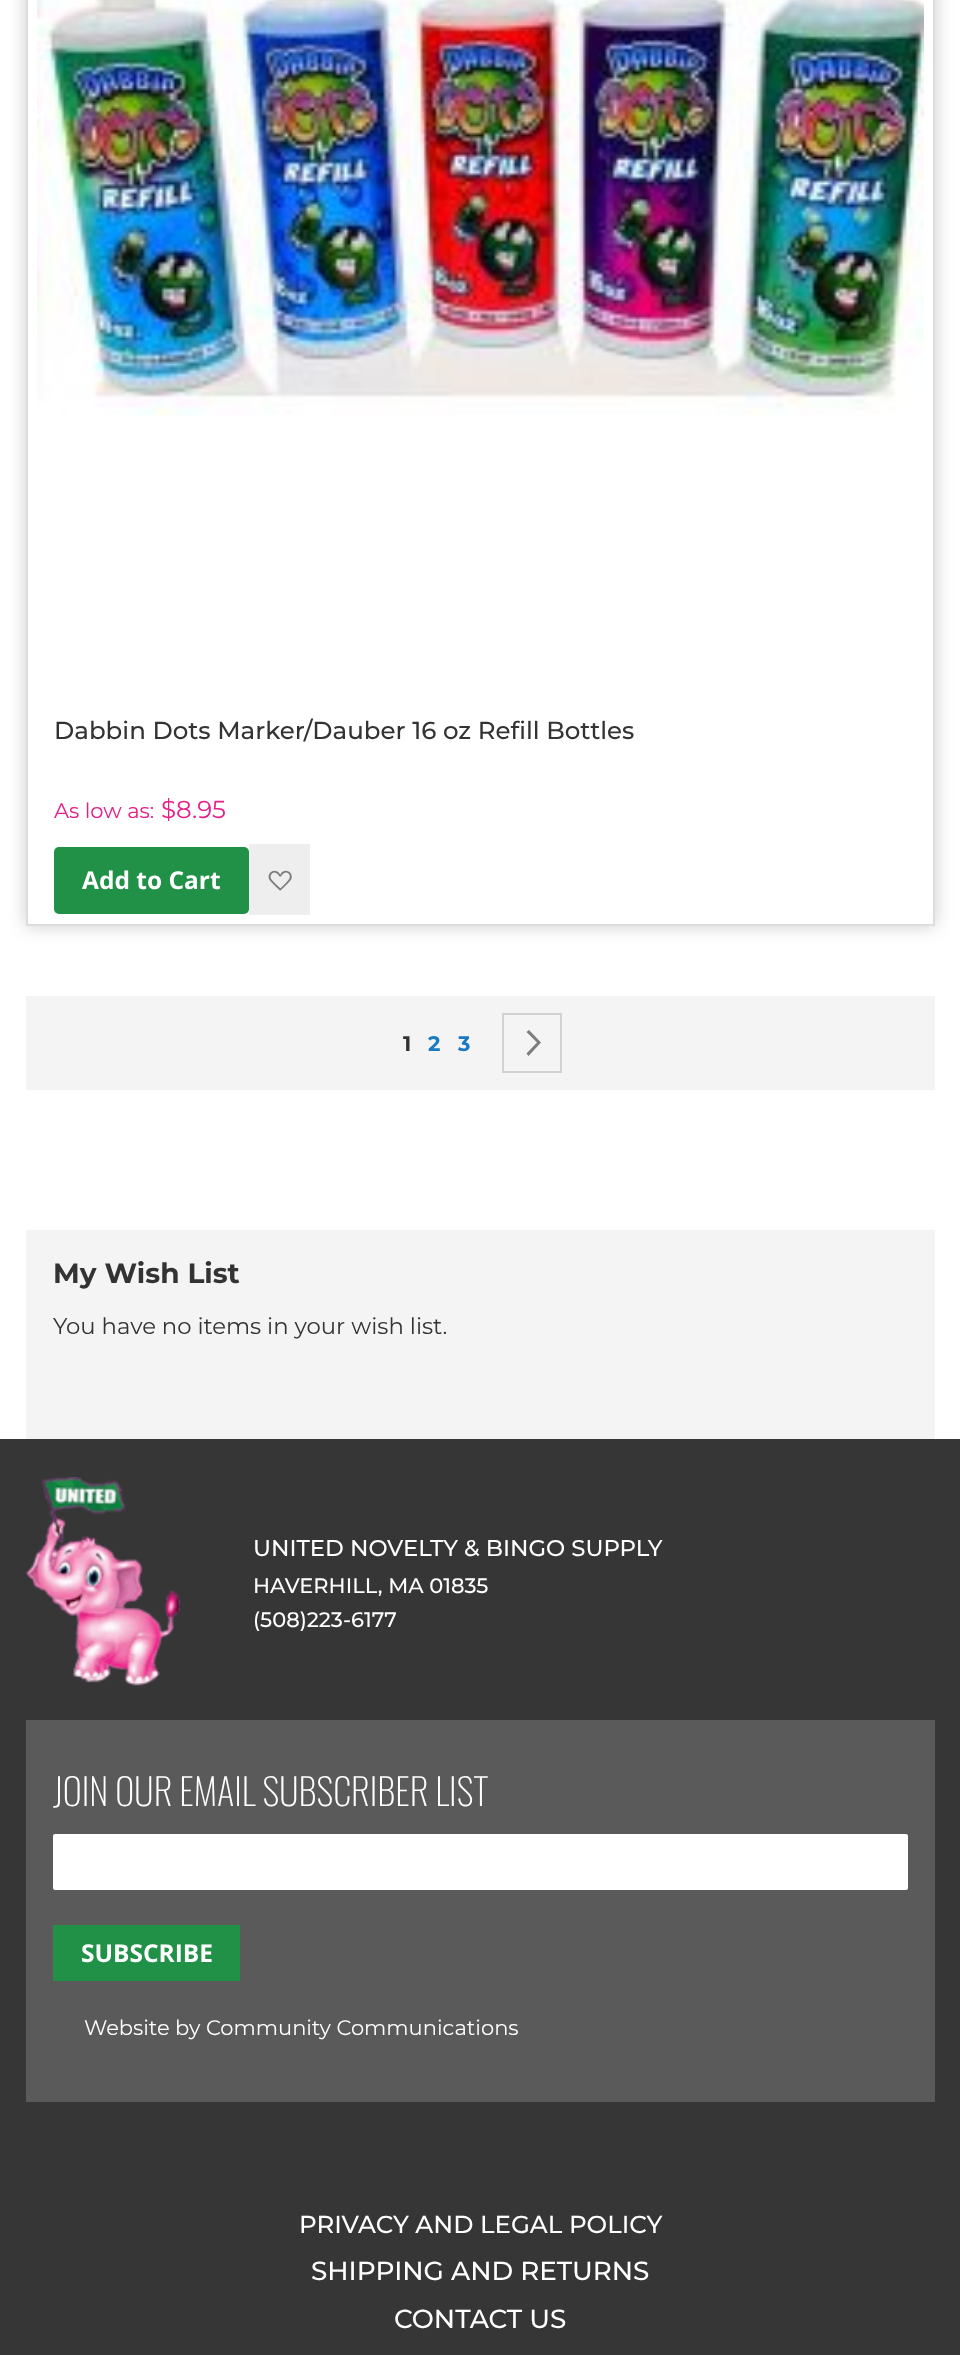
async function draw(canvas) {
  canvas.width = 960
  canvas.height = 2355
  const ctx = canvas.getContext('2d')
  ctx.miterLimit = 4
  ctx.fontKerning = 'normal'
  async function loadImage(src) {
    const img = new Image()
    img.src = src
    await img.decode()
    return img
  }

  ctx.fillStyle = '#fff'
  ctx.fillRect(0, 0, 960, 2355)
  ctx.fillStyle = '#00000033'
  ctx.filter = 'blur(9px)'
  ctx.beginPath()
  ctx.rect(26, -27, 909, 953)
  ctx.fill()
  ctx.filter = 'none'
  ctx.fillStyle = '#fff'
  ctx.beginPath()
  ctx.rect(27, -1, 907, 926)
  ctx.fill()
  ctx.strokeStyle = '#ddd'
  ctx.lineWidth = 2
  ctx.stroke()
  ctx.drawImage(await loadImage('image0.png'), 37, 0, 887, 417)
  ctx.font = '500 24.5px Montserrat'
  ctx.fillStyle = '#333'
  ctx.fillText('Dabbin Dots Marker/Dauber 16 oz Refill Bottles', 54, 739)
  ctx.font = '21px Montserrat'
  ctx.fillStyle = '#e61e88'
  ctx.fillText('As low as:', 54, 818)
  ctx.font = '24.5px Montserrat'
  ctx.fillText('$8.95', 161, 818)
  ctx.fillStyle = '#209146'
  ctx.beginPath()
  ctx.roundRect(54, 847, 195, 67, 5)
  ctx.fill()
  ctx.font = 'bold 24.5px Open Sans'
  ctx.fillStyle = '#fff'
  ctx.fillText('Add to Cart', 82, 889)
  ctx.fillStyle = '#eee'
  ctx.fillRect(249, 844, 61, 71)
  ctx.drawImage(await loadImage('image1.png'), 268, 870, 24, 21)
  ctx.fillStyle = '#f3f3f3ed'
  ctx.fillRect(26, 996, 909, 94)
  ctx.font = 'bold 21px Montserrat'
  ctx.fillStyle = '#333'
  ctx.fillText('1', 403, 1051)
  ctx.fillStyle = '#1979c3'
  ctx.fillText('2', 428, 1051)
  ctx.fillText('3', 458, 1051)
  ctx.strokeStyle = '#d1d1d1'
  ctx.strokeRect(503, 1014, 58, 58)
  ctx.fillStyle = '#7d7d7d'
  ctx.beginPath()
  ctx.moveTo(541, 1042.5)
  ctx.lineTo(529, 1030)
  ctx.lineTo(526.5, 1032)
  ctx.lineTo(537, 1042.5)
  ctx.lineTo(526.5, 1053.5)
  ctx.lineTo(528.5, 1056)
  ctx.closePath()
  ctx.fill()
  ctx.fillStyle = '#f3f3f3ed'
  ctx.fillRect(26, 1230, 909, 209)
  ctx.font = 'bold 28px Montserrat'
  ctx.fillStyle = '#333'
  ctx.fillText('My Wish List', 53, 1283)
  ctx.font = '22.75px Montserrat'
  ctx.fillText('You have no items in your wish list.', 53, 1334)
  ctx.fillStyle = '#363636'
  ctx.fillRect(0, 1439, 960, 916)
  ctx.drawImage(await loadImage('image2.png'), 26, 1477, 155, 209)
  ctx.font = '500 22.75px Montserrat'
  ctx.fillStyle = '#fff'
  ctx.fillText('UNITED NOVELTY & BINGO SUPPLY', 253, 1556)
  ctx.font = '500 21px Montserrat'
  ctx.fillText('HAVERHILL, MA 01835', 253, 1593)
  ctx.fillText('(508)223-6177', 253, 1627)
  ctx.fillStyle = '#5a5a5a'
  ctx.fillRect(26, 1720, 909, 382)
  ctx.font = '200 36.75px Oswald'
  ctx.fillStyle = '#fff'
  ctx.fillText('JOIN OUR EMAIL SUBSCRIBER LIST', 53, 1806)
  ctx.beginPath()
  ctx.roundRect(53, 1834, 855, 56, 2)
  ctx.fill()
  ctx.fillStyle = '#209146'
  ctx.fillRect(53, 1925, 187, 56)
  ctx.font = 'bold 24.5px Open Sans'
  ctx.fillStyle = '#fff'
  ctx.fillText('SUBSCRIBE', 81, 1962)
  ctx.font = '21px Montserrat'
  ctx.fillText('Website by Community Communications', 84, 2035)
  ctx.font = '500 24.5px Montserrat'
  ctx.fillText('PRIVACY AND LEGAL POLICY', 299, 2233)
  ctx.font = '500 26.25px Montserrat'
  ctx.fillText('SHIPPING AND RETURNS', 311, 2280)
  ctx.fillText('CONTACT US', 394, 2328)
}

draw(document.querySelector('canvas'))
